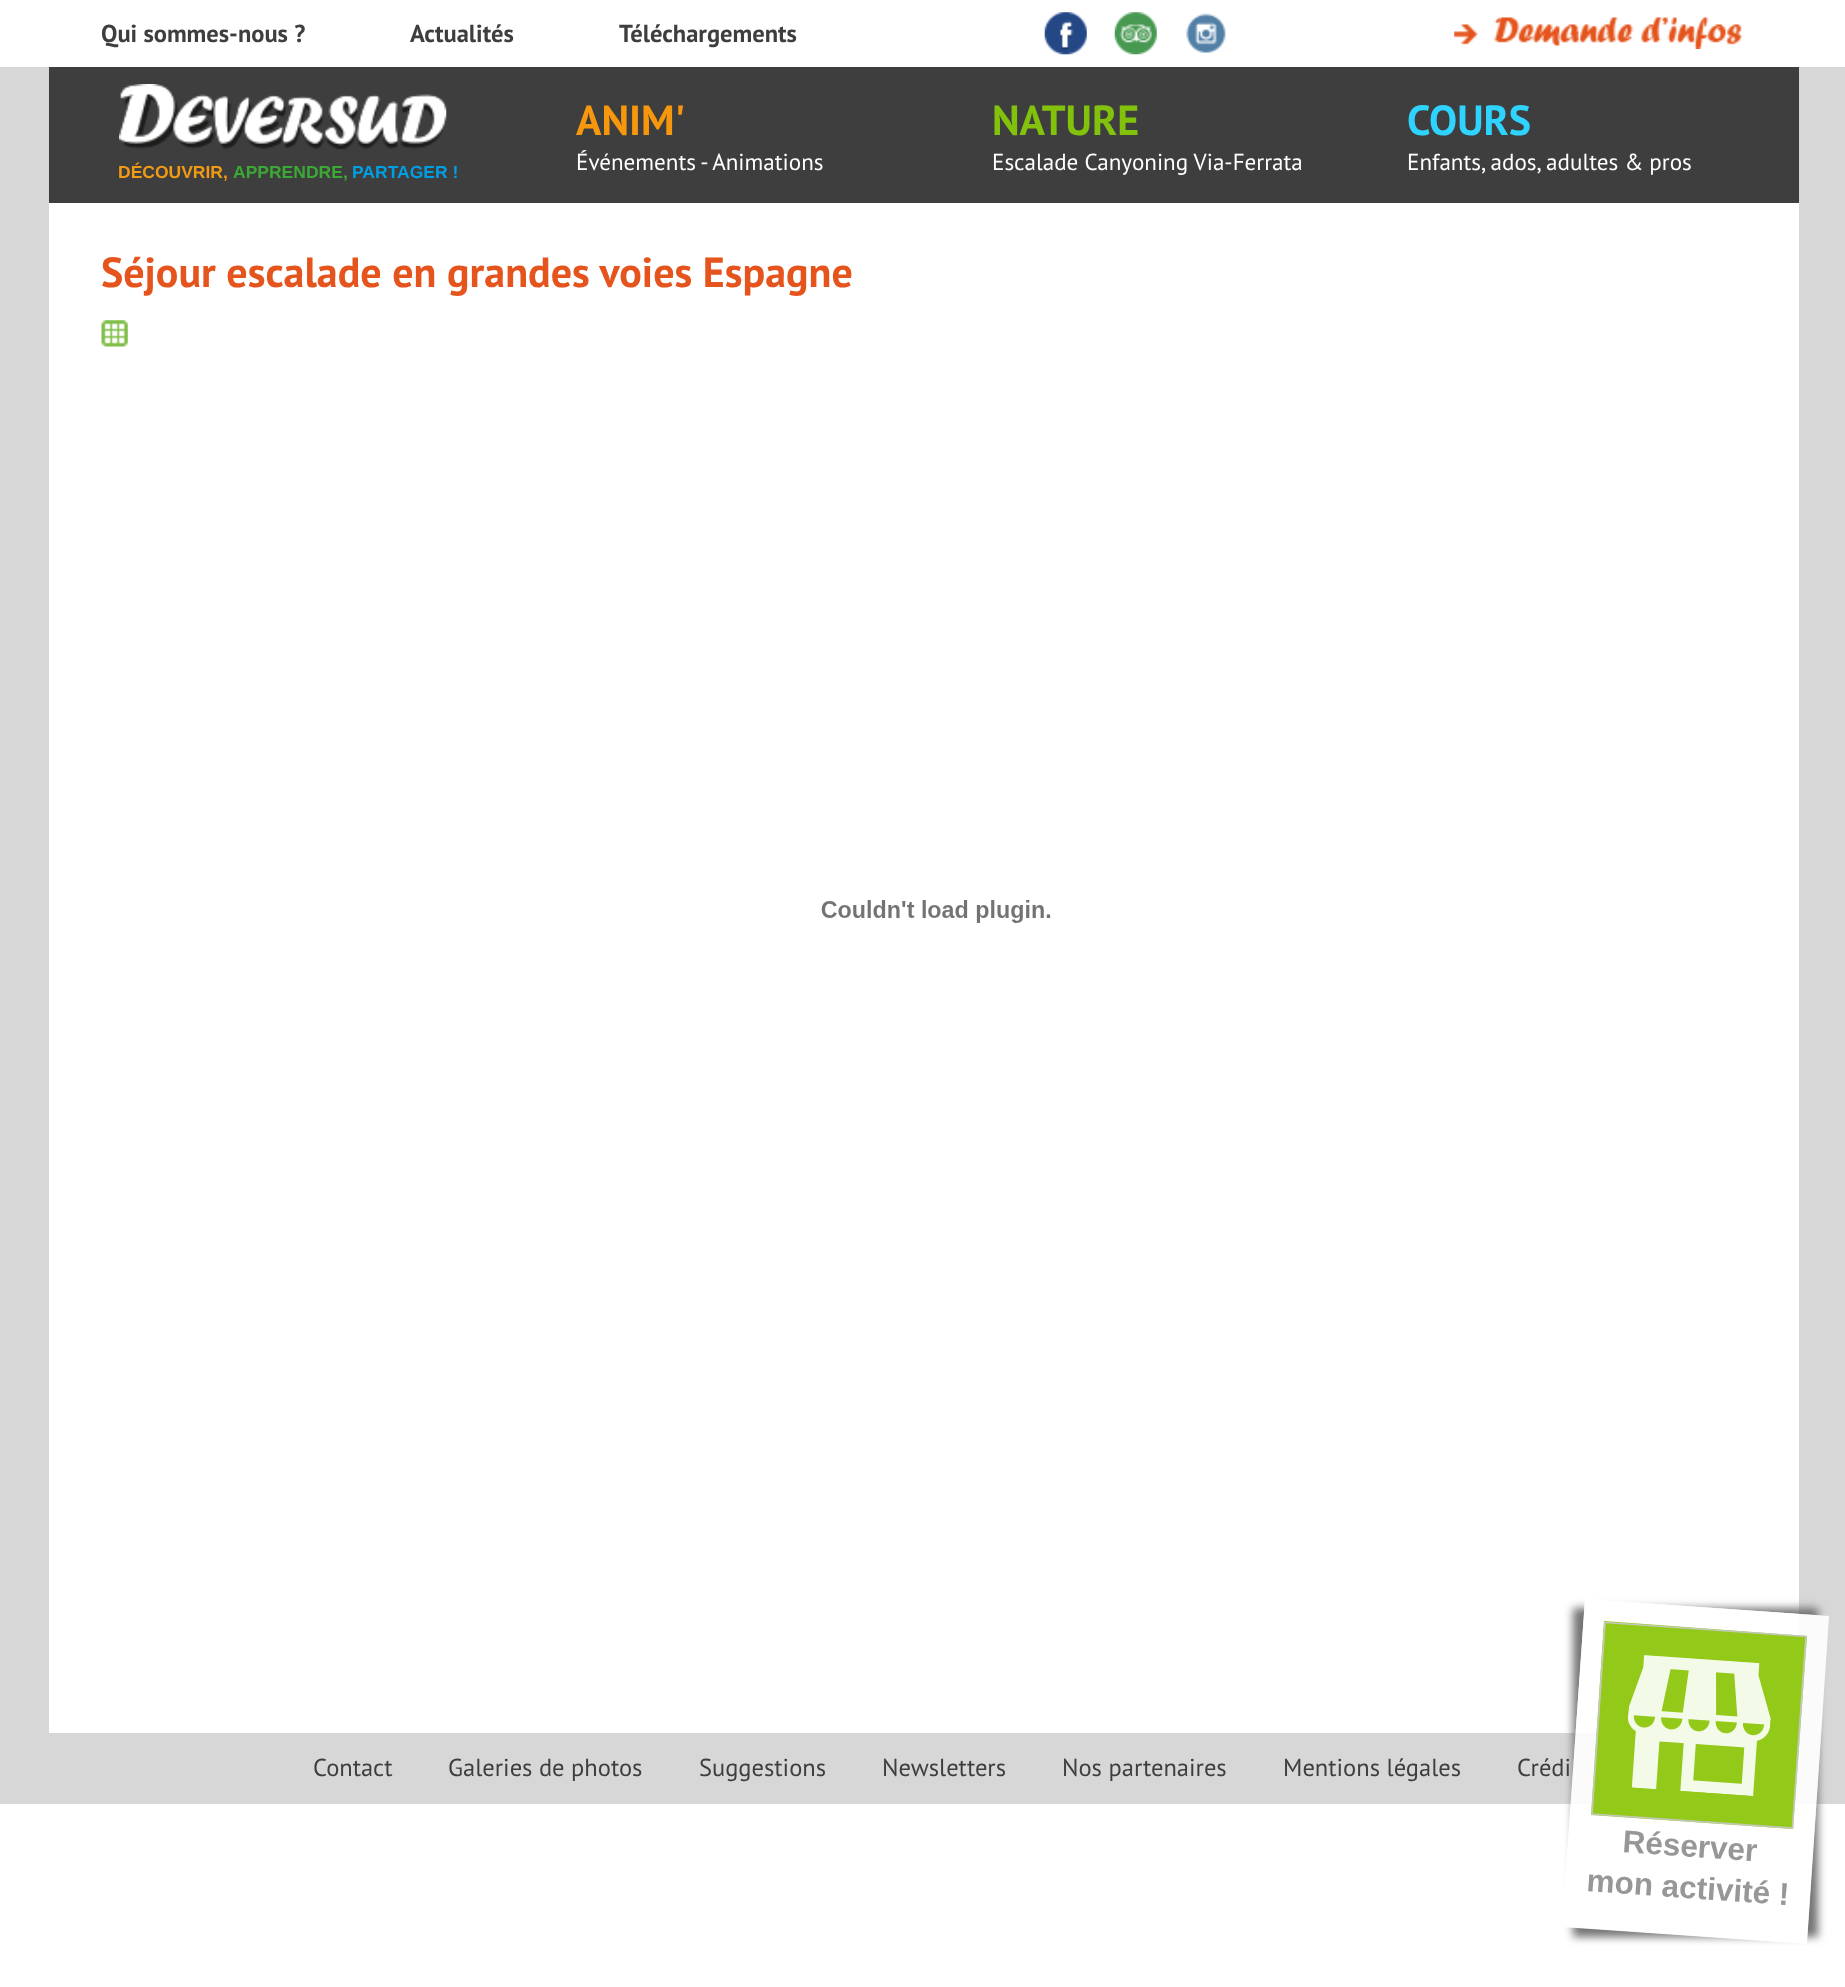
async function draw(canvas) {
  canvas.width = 1845
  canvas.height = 1987
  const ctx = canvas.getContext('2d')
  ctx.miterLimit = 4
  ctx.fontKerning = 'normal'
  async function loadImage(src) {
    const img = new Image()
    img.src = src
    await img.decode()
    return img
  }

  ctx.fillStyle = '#fff'
  ctx.fillRect(0, 0, 1845, 1987)
  ctx.fillStyle = '#d7d7d7'
  ctx.fillRect(0, 67, 1845, 1737)
  ctx.fillStyle = '#fff'
  ctx.fillRect(49, 67, 1750, 1666)
  ctx.drawImage(await loadImage('image0.png'), 1044, 12, 43, 43)
  ctx.drawImage(await loadImage('image1.png'), 1114, 12, 43, 43)
  ctx.drawImage(await loadImage('image2.png'), 1186, 13, 40, 40)
  ctx.font = 'bold 24.5px PT Sans'
  ctx.fillStyle = '#3e3e3e'
  ctx.fillText('Qui sommes-nous ?', 101, 42)
  ctx.fillText('Actualités', 410, 42)
  ctx.fillText('Téléchargements', 619, 42)
  ctx.drawImage(await loadImage('image3.png'), 1454, 17, 288, 32)
  ctx.fillRect(49, 67, 1750, 136)
  ctx.font = 'bold 42px PT Sans'
  ctx.fillStyle = '#f7970e'
  ctx.fillText('ANIM\'', 576, 135)
  ctx.font = '23.1px PT Sans'
  ctx.fillStyle = '#fff'
  ctx.fillText('Événements - Animations', 576, 170)
  ctx.font = 'bold 42px PT Sans'
  ctx.fillStyle = '#82c20c'
  ctx.fillText('NATURE', 992, 135)
  ctx.font = '23.1px PT Sans'
  ctx.fillStyle = '#fff'
  ctx.fillText('Escalade Canyoning Via-Ferrata', 992, 170)
  ctx.font = 'bold 42px PT Sans'
  ctx.fillStyle = '#2ed4ff'
  ctx.fillText('COURS', 1407, 135)
  ctx.font = '23.1px PT Sans'
  ctx.fillStyle = '#fff'
  ctx.fillText('Enfants, ados, adultes & pros', 1407, 170)
  ctx.drawImage(await loadImage('image4.png'), 119, 84, 328, 66)
  ctx.font = 'bold 17.5px Liberation Sans'
  ctx.fillStyle = '#f19b15'
  ctx.fillText('DÉCOUVRIR,', 118, 178)
  ctx.fillStyle = '#3aaa35'
  ctx.fillText('APPRENDRE,', 233, 178)
  ctx.fillStyle = '#009fe3'
  ctx.fillText('PARTAGER !', 352, 178)
  ctx.font = 'bold 42px PT Sans'
  ctx.fillStyle = '#e4541c'
  ctx.fillText('Séjour escalade en grandes voies Espagne', 101, 287)
  ctx.drawImage(await loadImage('image5.png'), 101, 320, 27, 27)
  ctx.drawImage(await loadImage('image6.png'), 821, 900, 230, 23)
  ctx.font = '24.5px PT Sans'
  ctx.fillStyle = '#3e3e3e'
  ctx.fillText('Contact', 313, 1776)
  ctx.fillText('Galeries de photos', 448, 1776)
  ctx.fillText('Suggestions', 699, 1776)
  ctx.fillText('Newsletters', 882, 1776)
  ctx.fillText('Nos partenaires', 1062, 1776)
  ctx.fillText('Mentions légales', 1283, 1776)
  ctx.fillText('Crédi', 1517, 1776)
  ctx.save()
  ctx.beginPath()
  ctx.moveTo(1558, 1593)
  ctx.lineTo(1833, 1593)
  ctx.lineTo(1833, 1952)
  ctx.lineTo(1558, 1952)
  ctx.closePath()
  ctx.moveTo(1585, 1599)
  ctx.lineTo(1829.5, 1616)
  ctx.lineTo(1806.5, 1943.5)
  ctx.lineTo(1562, 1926.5)
  ctx.closePath()
  ctx.clip('evenodd')
  ctx.fillStyle = '#656565e6'
  ctx.filter = 'blur(4.5px)'
  ctx.beginPath()
  ctx.rect(1573, 1608, 245, 329)
  ctx.fill()
  ctx.filter = 'none'
  ctx.restore()
  ctx.fillStyle = '#ffffffe6'
  ctx.beginPath()
  ctx.moveTo(1585, 1599)
  ctx.lineTo(1829, 1616)
  ctx.lineTo(1807, 1944)
  ctx.lineTo(1562, 1927)
  ctx.closePath()
  ctx.fill()
  ctx.fillStyle = '#87c300e6'
  ctx.beginPath()
  ctx.moveTo(1604, 1621)
  ctx.lineTo(1807, 1636)
  ctx.lineTo(1793, 1829)
  ctx.lineTo(1591, 1815)
  ctx.closePath()
  ctx.fill()
  ctx.beginPath()
  ctx.moveTo(1605, 1622.5)
  ctx.lineTo(1806, 1636.5)
  ctx.lineTo(1792.5, 1828)
  ctx.lineTo(1592, 1814)
  ctx.closePath()
  ctx.strokeStyle = '#c9c9c9e6'
  ctx.lineWidth = 1.7
  ctx.stroke()
  ctx.drawImage(await loadImage('image7.png'), 1628, 1655, 143, 141)
  ctx.font = 'bold 31.5px Liberation Sans'
  ctx.fillStyle = '#979797'
  ctx.save()
  ctx.translate(1622, 1852)
  ctx.rotate(4 * Math.PI / 180)
  ctx.fillText('Réserver', 0, 0)
  ctx.restore()
  ctx.save()
  ctx.translate(1586, 1891)
  ctx.rotate(4 * Math.PI / 180)
  ctx.fillText('mon activité !', 0, 0)
  ctx.restore()
}

draw(document.querySelector('canvas'))
